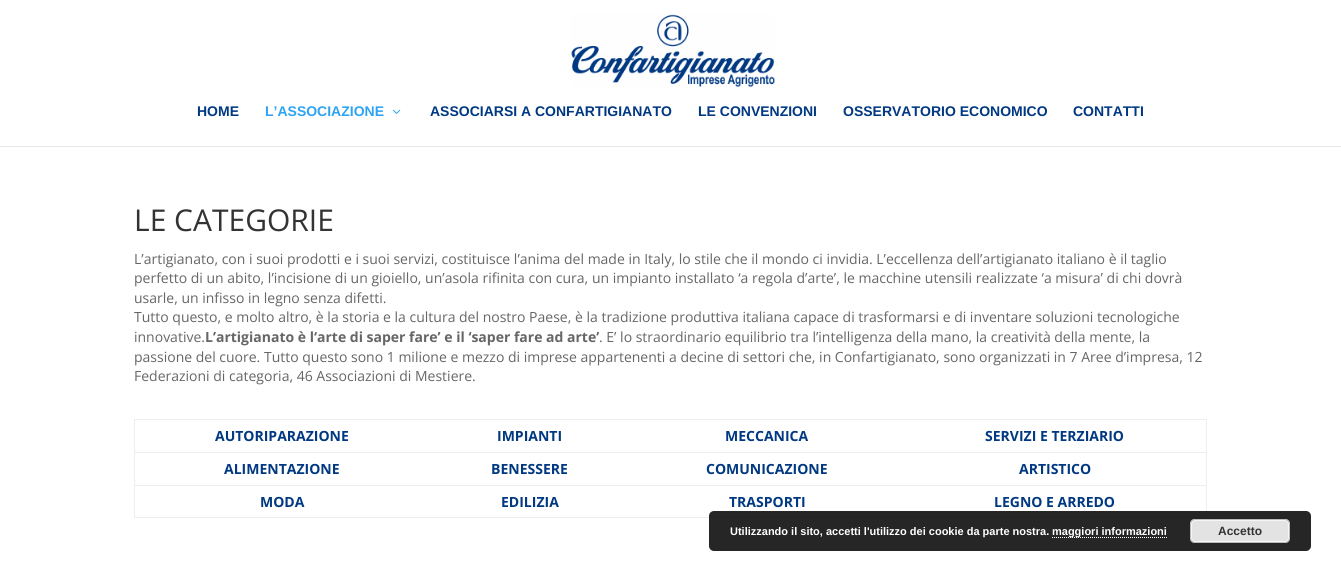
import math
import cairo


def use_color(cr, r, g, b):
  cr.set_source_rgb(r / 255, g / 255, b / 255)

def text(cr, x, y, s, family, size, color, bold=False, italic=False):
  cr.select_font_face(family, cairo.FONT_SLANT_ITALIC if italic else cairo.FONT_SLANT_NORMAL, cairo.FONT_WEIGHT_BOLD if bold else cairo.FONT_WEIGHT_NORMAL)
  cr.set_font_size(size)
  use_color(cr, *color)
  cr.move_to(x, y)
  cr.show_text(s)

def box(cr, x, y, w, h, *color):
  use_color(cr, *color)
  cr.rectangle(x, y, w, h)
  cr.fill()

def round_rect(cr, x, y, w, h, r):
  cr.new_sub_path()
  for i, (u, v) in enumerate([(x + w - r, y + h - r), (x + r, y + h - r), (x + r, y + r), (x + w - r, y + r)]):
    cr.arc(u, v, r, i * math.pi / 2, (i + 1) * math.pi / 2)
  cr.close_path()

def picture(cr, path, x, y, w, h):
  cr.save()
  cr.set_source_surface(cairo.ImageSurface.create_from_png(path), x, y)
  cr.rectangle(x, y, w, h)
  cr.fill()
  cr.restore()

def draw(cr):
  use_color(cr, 255, 255, 255)
  cr.paint()
  box(cr, 0, 146, 1341, 1, 230, 230, 230)
  picture(cr, "img_01.png", 571, 14, 204, 73)
  picture(cr, "img_02.png", 392, 109, 9, 5)
  box(cr, 134, 419, 1073, 1, 238, 238, 238)
  box(cr, 1206, 419, 1, 99, 238, 238, 238)
  box(cr, 134, 517, 1073, 1, 238, 238, 238)
  box(cr, 134, 419, 1, 99, 238, 238, 238)
  box(cr, 134, 452, 1073, 1, 238, 238, 238)
  box(cr, 134, 485, 1073, 1, 238, 238, 238)
  cr.set_source_rgba(0, 0, 0, 0.85)
  round_rect(cr, 709, 511, 602, 40, 5)
  cr.fill()
  cr.new_path()
  cr.move_to(1052, 537.5)
  cr.line_to(1167, 537.5)
  use_color(cr, 255, 255, 255)
  cr.set_line_width(1)
  cr.set_dash([1, 1])
  cr.stroke()
  use_color(cr, 227, 227, 227)
  round_rect(cr, 1190, 519, 100, 24, 5)
  cr.fill()
  round_rect(cr, 1191.5, 520.5, 97, 21, 3.5)
  use_color(cr, 246, 246, 246)
  cr.set_dash([])
  cr.stroke()
  round_rect(cr, 1190.5, 519.5, 99, 23, 4.5)
  use_color(cr, 187, 187, 187)
  cr.stroke()
  text(cr, 197, 116, "HOME", "Liberation Sans", 14, (0, 56, 130), bold=True)
  text(cr, 265, 116, "L’ASSOCIAZIONE", "Liberation Sans", 14, (46, 163, 242), bold=True)
  text(cr, 430, 116, "ASSOCIARSI A CONFARTIGIANATO", "Liberation Sans", 14, (0, 56, 130), bold=True)
  text(cr, 698, 116, "LE CONVENZIONI", "Liberation Sans", 14, (0, 56, 130), bold=True)
  text(cr, 843, 116, "OSSERVATORIO ECONOMICO", "Liberation Sans", 14, (0, 56, 130), bold=True)
  text(cr, 1073, 116, "CONTATTI", "Liberation Sans", 14, (0, 56, 130), bold=True)
  text(cr, 134, 231, "LE CATEGORIE", "Open Sans", 30, (51, 51, 51))
  text(cr, 134, 264, "L’artigianato, con i suoi prodotti e i suoi servizi, costituisce l’anima del made in Italy, lo stile che il mondo ci invidia. L’eccellenza dell’artigianato italiano è il taglio", "Open Sans", 14, (102, 102, 102))
  text(cr, 134, 283, "perfetto di un abito, l’incisione di un gioiello, un’asola rifinita con cura, un impianto installato ‘a regola d’arte’, le macchine utensili realizzate ‘a misura’ di chi dovrà", "Open Sans", 14, (102, 102, 102))
  text(cr, 134, 303, "usarle, un infisso in legno senza difetti.", "Open Sans", 14, (102, 102, 102))
  text(cr, 134, 322, "Tutto questo, e molto altro, è la storia e la cultura del nostro Paese, è la tradizione produttiva italiana capace di trasformarsi e di inventare soluzioni tecnologiche", "Open Sans", 14, (102, 102, 102))
  text(cr, 134, 342, "innovative.", "Open Sans", 14, (102, 102, 102))
  text(cr, 205, 342, "L’artigianato è l‘arte di saper fare’ e il ‘saper fare ad arte’", "Open Sans", 14, (102, 102, 102), bold=True)
  text(cr, 599, 342, ". E’ lo straordinario equilibrio tra l’intelligenza della mano, la creatività della mente, la", "Open Sans", 14, (102, 102, 102))
  text(cr, 134, 362, "passione del cuore. Tutto questo sono 1 milione e mezzo di imprese appartenenti a decine di settori che, in Confartigianato, sono organizzati in 7 Aree d’impresa, 12", "Open Sans", 14, (102, 102, 102))
  text(cr, 134, 381, "Federazioni di categoria, 46 Associazioni di Mestiere.", "Open Sans", 14, (102, 102, 102))
  text(cr, 215, 441, "AUTORIPARAZIONE", "Open Sans", 14, (0, 56, 130), bold=True)
  text(cr, 497, 441, "IMPIANTI", "Open Sans", 14, (0, 56, 130), bold=True)
  text(cr, 725, 441, "MECCANICA", "Open Sans", 14, (0, 56, 130), bold=True)
  text(cr, 985, 441, "SERVIZI E TERZIARIO", "Open Sans", 14, (0, 56, 130), bold=True)
  text(cr, 224, 474, "ALIMENTAZIONE", "Open Sans", 14, (0, 56, 130), bold=True)
  text(cr, 491, 474, "BENESSERE", "Open Sans", 14, (0, 56, 130), bold=True)
  text(cr, 706, 474, "COMUNICAZIONE", "Open Sans", 14, (0, 56, 130), bold=True)
  text(cr, 1019, 474, "ARTISTICO", "Open Sans", 14, (0, 56, 130), bold=True)
  text(cr, 260, 507, "MODA", "Open Sans", 14, (0, 56, 130), bold=True)
  text(cr, 501, 507, "EDILIZIA", "Open Sans", 14, (0, 56, 130), bold=True)
  text(cr, 729, 507, "TRASPORTI", "Open Sans", 14, (0, 56, 130), bold=True)
  text(cr, 994, 507, "LEGNO E ARREDO", "Open Sans", 14, (0, 56, 130), bold=True)
  text(cr, 730, 535, "Utilizzando il sito, accetti l'utilizzo dei cookie da parte nostra.", "Liberation Sans", 11, (255, 255, 255), bold=True)
  text(cr, 1052, 535, "maggiori informazioni", "Liberation Sans", 11, (255, 255, 255), bold=True)
  text(cr, 1218, 535, "Accetto", "Liberation Sans", 12, (51, 51, 51), bold=True)


surface = cairo.ImageSurface(cairo.FORMAT_RGB24, 1341, 581)
cr = cairo.Context(surface)
options = cairo.FontOptions()
options.set_hint_metrics(cairo.HINT_METRICS_OFF)
options.set_hint_style(cairo.HINT_STYLE_NONE)
cr.set_font_options(options)
cr.set_miter_limit(4)
draw(cr)
surface.write_to_png("out.png")
